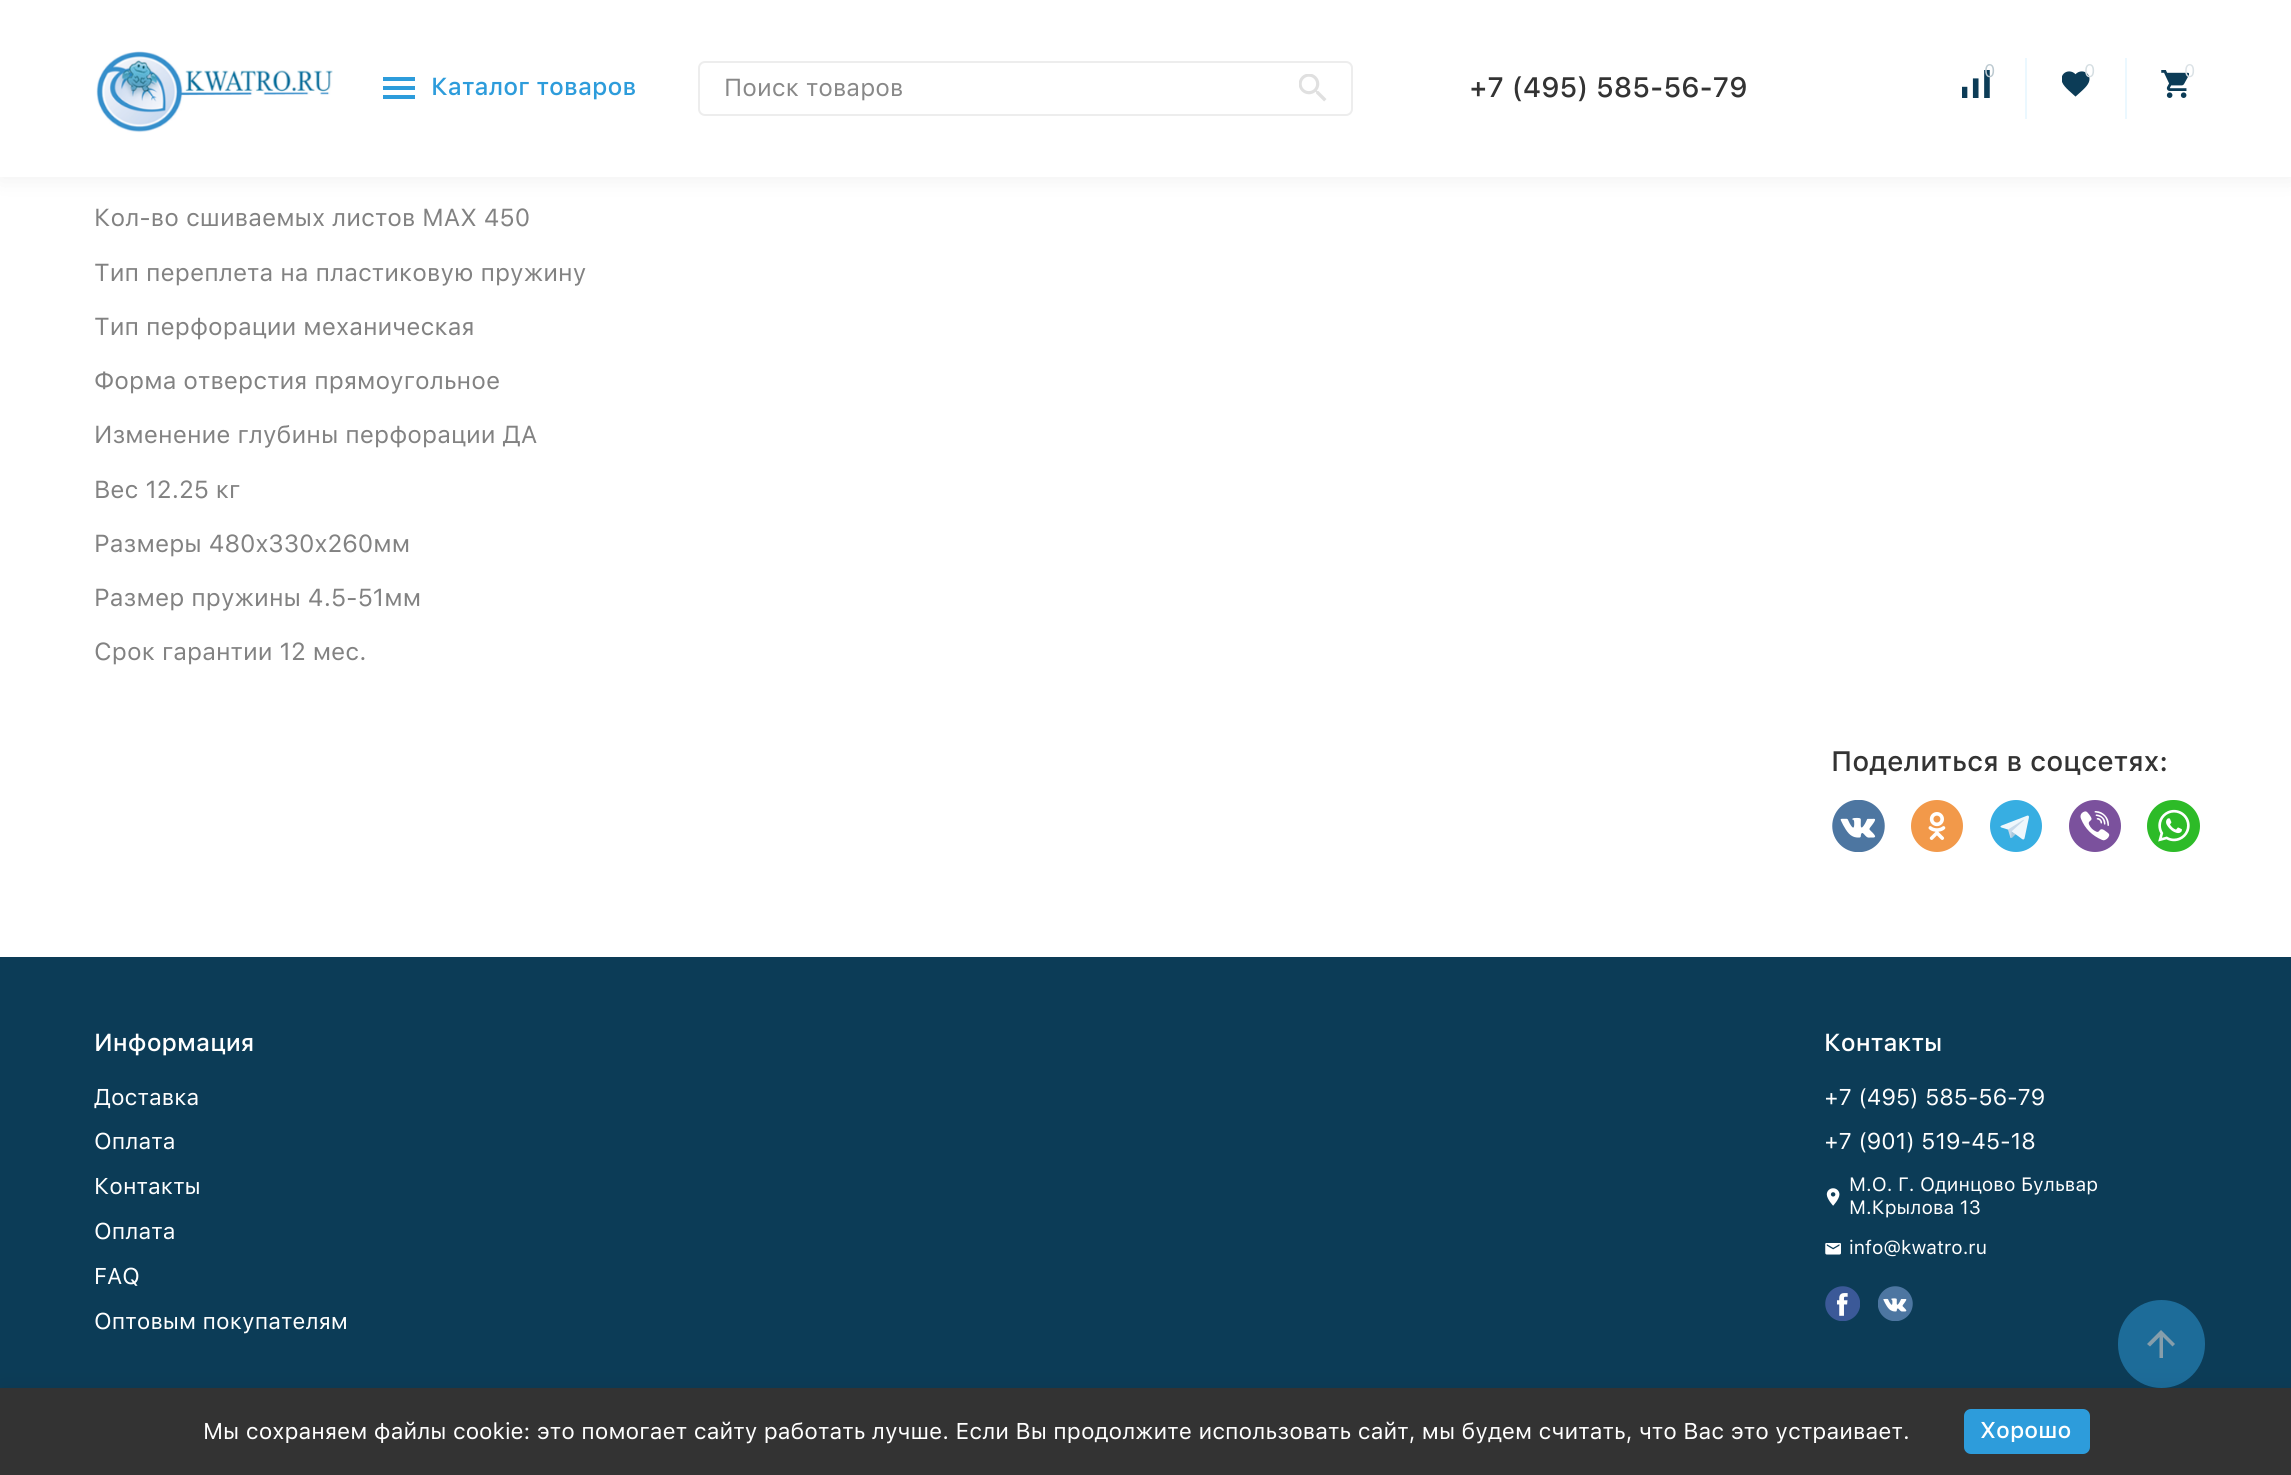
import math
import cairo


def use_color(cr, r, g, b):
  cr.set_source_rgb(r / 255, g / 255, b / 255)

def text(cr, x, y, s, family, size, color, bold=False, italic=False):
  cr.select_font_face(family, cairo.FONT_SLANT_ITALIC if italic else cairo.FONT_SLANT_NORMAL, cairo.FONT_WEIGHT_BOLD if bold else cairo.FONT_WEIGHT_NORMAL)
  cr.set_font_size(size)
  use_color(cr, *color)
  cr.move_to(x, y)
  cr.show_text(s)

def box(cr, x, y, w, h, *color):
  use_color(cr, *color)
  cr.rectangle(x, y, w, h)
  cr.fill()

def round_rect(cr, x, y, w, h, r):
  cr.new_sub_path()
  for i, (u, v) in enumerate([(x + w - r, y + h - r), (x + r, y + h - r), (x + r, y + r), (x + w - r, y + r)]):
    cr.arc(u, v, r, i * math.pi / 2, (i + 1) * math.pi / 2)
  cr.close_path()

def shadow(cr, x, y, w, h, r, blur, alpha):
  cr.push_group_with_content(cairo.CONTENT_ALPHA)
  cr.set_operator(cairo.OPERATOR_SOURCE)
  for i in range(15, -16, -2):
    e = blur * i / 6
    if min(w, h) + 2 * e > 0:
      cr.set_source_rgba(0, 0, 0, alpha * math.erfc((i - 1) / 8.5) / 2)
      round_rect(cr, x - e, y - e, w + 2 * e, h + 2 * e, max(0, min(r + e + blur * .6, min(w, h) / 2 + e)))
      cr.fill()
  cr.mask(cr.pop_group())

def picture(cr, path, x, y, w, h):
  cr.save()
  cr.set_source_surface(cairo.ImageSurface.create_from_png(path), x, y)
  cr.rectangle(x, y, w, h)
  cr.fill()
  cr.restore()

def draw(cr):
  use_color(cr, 255, 255, 255)
  cr.paint()
  use_color(cr, 0, 0, 0)
  shadow(cr, 0, 0, 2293, 177, 0, 13, 0.07)
  box(cr, 0, 0, 2291, 177, 255, 255, 255)
  picture(cr, "img_01.png", 96, 51, 237, 82)
  picture(cr, "img_02.png", 1962, 70, 28, 28)
  box(cr, 2025, 58, 2, 61, 235, 248, 255)
  picture(cr, "img_03.png", 2062, 71, 28, 26)
  box(cr, 2125, 58, 2, 61, 235, 248, 255)
  picture(cr, "img_04.png", 2161, 70, 28, 28)
  box(cr, 383, 77, 32, 4, 45, 156, 219)
  box(cr, 383, 86, 32, 4, 45, 156, 219)
  box(cr, 383, 95, 32, 4, 45, 156, 219)
  round_rect(cr, 699, 62, 653, 53, 6)
  use_color(cr, 237, 237, 237)
  cr.stroke()
  picture(cr, "img_05.png", 1299, 74, 28, 28)
  picture(cr, "img_06.png", 1832, 800, 53, 52)
  picture(cr, "img_07.png", 1911, 800, 52, 52)
  picture(cr, "img_08.png", 1990, 800, 52, 52)
  picture(cr, "img_09.png", 2069, 800, 52, 52)
  picture(cr, "img_10.png", 2147, 800, 53, 52)
  box(cr, 0, 957, 2291, 431, 12, 60, 87)
  picture(cr, "img_11.png", 1826, 1188, 14, 18)
  picture(cr, "img_12.png", 1825, 1243, 16, 12)
  picture(cr, "img_13.png", 1825, 1286, 35, 35)
  picture(cr, "img_14.png", 1878, 1286, 35, 35)
  use_color(cr, 29, 108, 153)
  round_rect(cr, 2118, 1300, 87, 88, 43.5)
  cr.fill()
  use_color(cr, 134, 158, 171)
  cr.new_path()
  cr.move_to(2163, 1358)
  cr.line_to(2159.5, 1358)
  cr.line_to(2159.5, 1337)
  cr.line_to(2150, 1346.5)
  cr.line_to(2147, 1344)
  cr.line_to(2161, 1330)
  cr.line_to(2175, 1344)
  cr.line_to(2172.5, 1346.5)
  cr.line_to(2163, 1337)
  cr.close_path()
  cr.fill()
  use_color(cr, 0, 0, 0)
  shadow(cr, 0, 1388, 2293, 87, 0, 13, 0.07)
  box(cr, 0, 1388, 2291, 87, 51, 51, 51)
  use_color(cr, 45, 156, 219)
  round_rect(cr, 1964, 1409, 126, 45, 7)
  cr.fill()
  text(cr, 1984, 77, "0", "SF Pro Text", 18, (188, 201, 208))
  text(cr, 2084, 77, "0", "SF Pro Text", 18, (213, 222, 226))
  text(cr, 2184, 77, "0", "SF Pro Text", 18, (219, 226, 230))
  text(cr, 431, 95, "Каталог товаров", "SF Pro Text Medium", 24.5, (45, 156, 219))
  text(cr, 724, 96, "Поиск товаров", "SF Pro Text", 24.5, (136, 136, 136))
  text(cr, 1469, 97, "+7 (495) 585-56-79", "SF Pro Text Medium", 28, (51, 51, 51))
  text(cr, 94, 226, "Кол-во сшиваемых листов MAX 450", "SF Pro Text", 24.5, (130, 130, 130))
  text(cr, 94, 281, "Тип переплета на пластиковую пружину", "SF Pro Text", 24.5, (130, 130, 130))
  text(cr, 94, 335, "Тип перфорации механическая", "SF Pro Text", 24.5, (130, 130, 130))
  text(cr, 94, 389, "Форма отверстия прямоугольное", "SF Pro Text", 24.5, (130, 130, 130))
  text(cr, 94, 443, "Изменение глубины перфорации ДА", "SF Pro Text", 24.5, (130, 130, 130))
  text(cr, 94, 498, "Вес 12.25 кг", "SF Pro Text", 24.5, (130, 130, 130))
  text(cr, 94, 552, "Размеры 480x330x260мм", "SF Pro Text", 24.5, (130, 130, 130))
  text(cr, 94, 606, "Размер пружины 4.5-51мм", "SF Pro Text", 24.5, (130, 130, 130))
  text(cr, 94, 660, "Срок гарантии 12 мес.", "SF Pro Text", 24.5, (130, 130, 130))
  text(cr, 1831, 771, "Поделиться в соцсетях:", "SF Pro Text Medium", 28, (51, 51, 51))
  text(cr, 94, 1051, "Информация", "SF Pro Text Medium", 24.5, (255, 255, 255))
  text(cr, 94, 1105, "Доставка", "SF Pro Text", 22.75, (255, 255, 255))
  text(cr, 94, 1149, "Оплата", "SF Pro Text", 22.75, (255, 255, 255))
  text(cr, 94, 1194, "Контакты", "SF Pro Text", 22.75, (255, 255, 255))
  text(cr, 94, 1239, "Оплата", "SF Pro Text", 22.75, (255, 255, 255))
  text(cr, 94, 1284, "FAQ", "SF Pro Text", 22.75, (255, 255, 255))
  text(cr, 94, 1329, "Оптовым покупателям", "SF Pro Text", 22.75, (255, 255, 255))
  text(cr, 1824, 1051, "Контакты", "SF Pro Text Medium", 24.5, (255, 255, 255))
  text(cr, 1824, 1105, "+7 (495) 585-56-79", "SF Pro Text", 22.75, (255, 255, 255))
  text(cr, 1824, 1149, "+7 (901) 519-45-18", "SF Pro Text", 22.75, (255, 255, 255))
  text(cr, 1849, 1191, "М.О. Г. Одинцово Бульвар", "SF Pro Text", 19.25, (255, 255, 255))
  text(cr, 1849, 1214, "М.Крылова 13", "SF Pro Text", 19.25, (255, 255, 255))
  text(cr, 1849, 1254, "info@kwatro.ru", "SF Pro Text", 19.25, (255, 255, 255))
  text(cr, 203, 1439, "Мы сохраняем файлы cookie: это помогает сайту работать лучше. Если Вы продолжите использовать сайт, мы будем считать, что Вас это устраивает.", "SF Pro Text", 22.75, (255, 255, 255))
  text(cr, 1980, 1438, "Хорошо", "SF Pro Text Medium", 22.75, (255, 255, 255))


surface = cairo.ImageSurface(cairo.FORMAT_RGB24, 2291, 1475)
cr = cairo.Context(surface)
options = cairo.FontOptions()
options.set_hint_metrics(cairo.HINT_METRICS_OFF)
options.set_hint_style(cairo.HINT_STYLE_NONE)
cr.set_font_options(options)
cr.set_miter_limit(4)
draw(cr)
surface.write_to_png("out.png")
